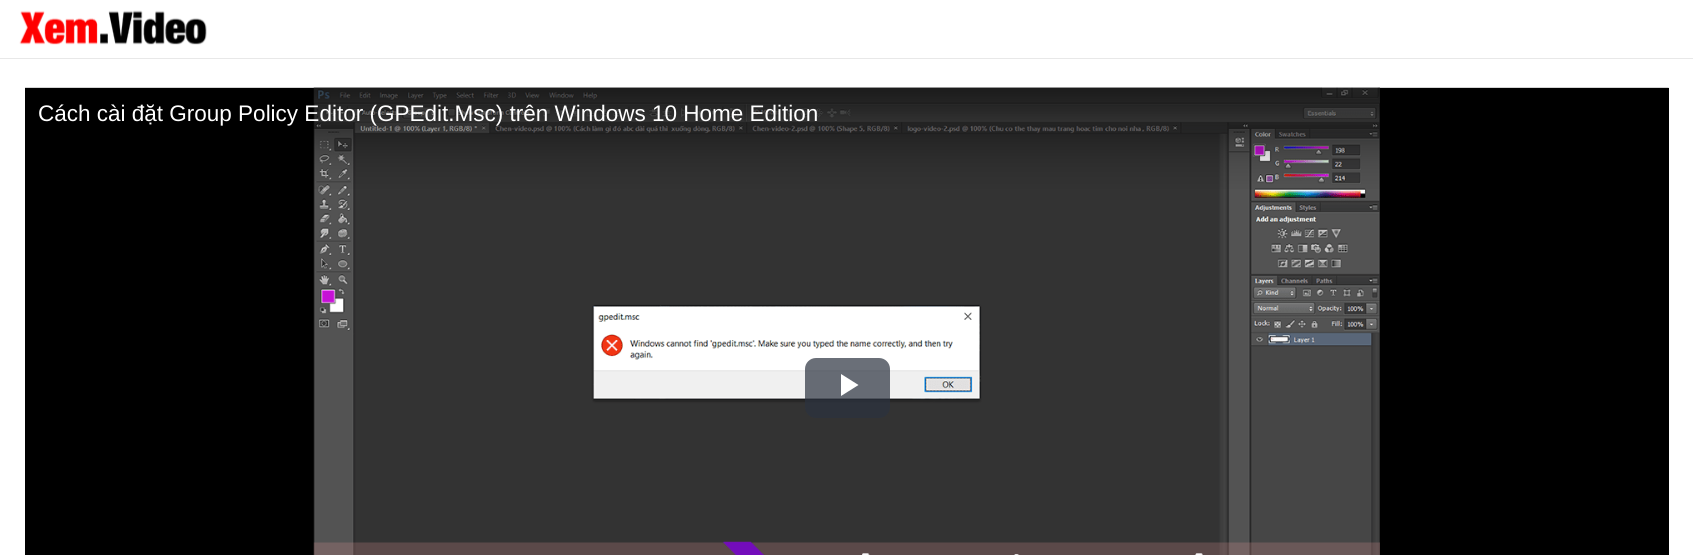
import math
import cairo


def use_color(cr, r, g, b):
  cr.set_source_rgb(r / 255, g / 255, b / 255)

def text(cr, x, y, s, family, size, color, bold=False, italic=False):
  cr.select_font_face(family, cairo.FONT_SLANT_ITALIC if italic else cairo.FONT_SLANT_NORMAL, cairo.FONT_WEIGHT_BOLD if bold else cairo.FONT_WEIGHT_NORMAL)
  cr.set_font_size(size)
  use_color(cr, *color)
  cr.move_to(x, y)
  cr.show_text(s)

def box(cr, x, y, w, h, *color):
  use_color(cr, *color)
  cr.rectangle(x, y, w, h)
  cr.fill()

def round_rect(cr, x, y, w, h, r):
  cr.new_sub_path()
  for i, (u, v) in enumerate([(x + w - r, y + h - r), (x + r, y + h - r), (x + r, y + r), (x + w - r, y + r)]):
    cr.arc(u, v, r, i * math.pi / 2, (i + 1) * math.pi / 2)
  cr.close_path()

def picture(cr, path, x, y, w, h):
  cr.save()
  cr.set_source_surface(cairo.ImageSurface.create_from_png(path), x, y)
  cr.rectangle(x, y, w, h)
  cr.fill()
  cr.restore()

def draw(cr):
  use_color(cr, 255, 255, 255)
  cr.paint()
  box(cr, 0, 58, 1693, 1, 232, 232, 232)
  picture(cr, "img_01.png", 19, 10, 188, 35)
  box(cr, 25, 88, 1644, 467, 0, 0, 0)
  picture(cr, "img_03.png", 313, 87, 1067, 1)
  picture(cr, "img_02.png", 313, 87, 1067, 468)
  picture(cr, "img_04.png", 25, 87, 1644, 102)
  cr.set_source_rgba(0.169, 0.2, 0.247, 0.7)
  round_rect(cr, 805, 358, 85, 60, 11)
  cr.fill()
  use_color(cr, 255, 255, 255)
  cr.new_path()
  cr.move_to(841, 374)
  cr.line_to(841, 396)
  cr.line_to(858.5, 385)
  cr.close_path()
  cr.fill()
  text(cr, 38, 121, "Cách cài đặt Group Policy Editor (GPEdit.Msc) trên Windows 10 Home Edition", "Liberation Sans", 22.5, (255, 255, 255))


surface = cairo.ImageSurface(cairo.FORMAT_RGB24, 1693, 555)
cr = cairo.Context(surface)
options = cairo.FontOptions()
options.set_hint_metrics(cairo.HINT_METRICS_OFF)
options.set_hint_style(cairo.HINT_STYLE_NONE)
cr.set_font_options(options)
cr.set_miter_limit(4)
draw(cr)
surface.write_to_png("out.png")
